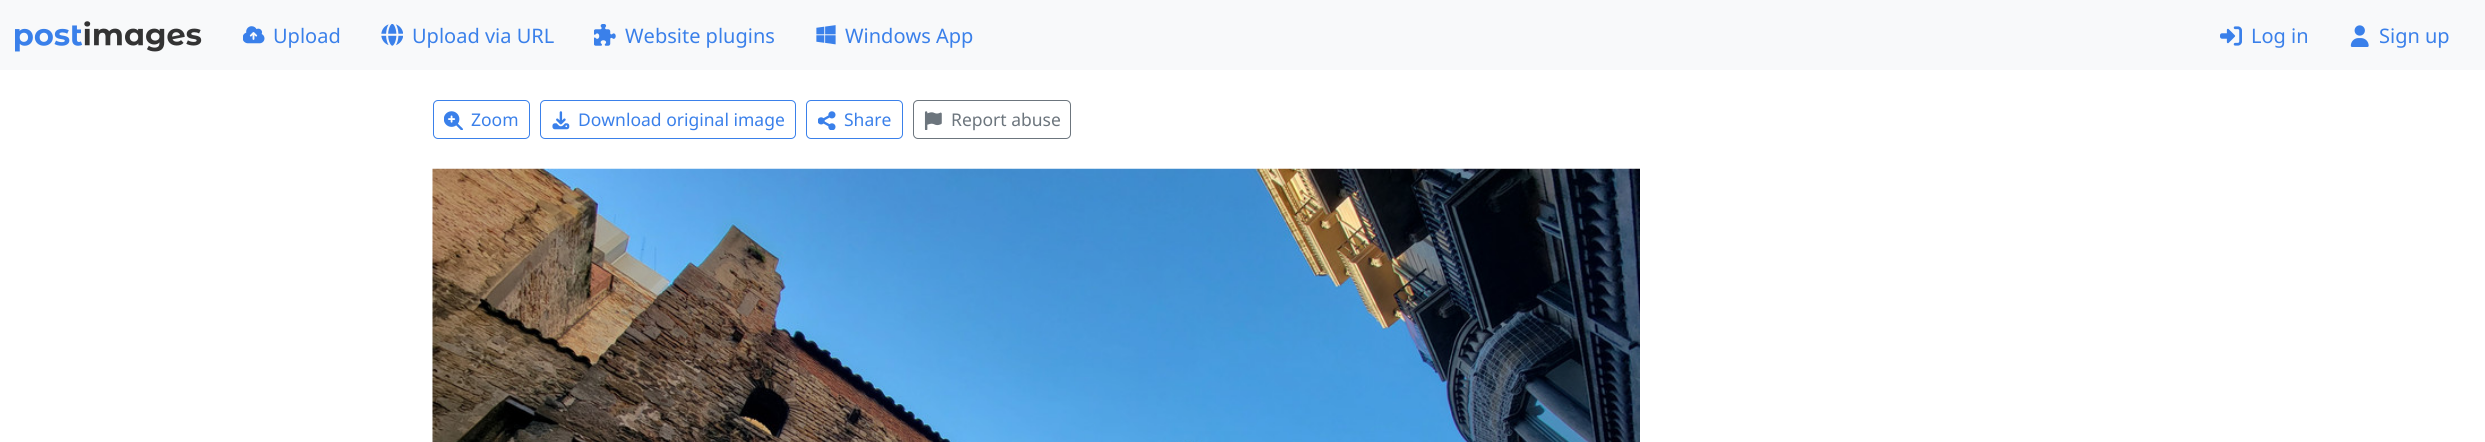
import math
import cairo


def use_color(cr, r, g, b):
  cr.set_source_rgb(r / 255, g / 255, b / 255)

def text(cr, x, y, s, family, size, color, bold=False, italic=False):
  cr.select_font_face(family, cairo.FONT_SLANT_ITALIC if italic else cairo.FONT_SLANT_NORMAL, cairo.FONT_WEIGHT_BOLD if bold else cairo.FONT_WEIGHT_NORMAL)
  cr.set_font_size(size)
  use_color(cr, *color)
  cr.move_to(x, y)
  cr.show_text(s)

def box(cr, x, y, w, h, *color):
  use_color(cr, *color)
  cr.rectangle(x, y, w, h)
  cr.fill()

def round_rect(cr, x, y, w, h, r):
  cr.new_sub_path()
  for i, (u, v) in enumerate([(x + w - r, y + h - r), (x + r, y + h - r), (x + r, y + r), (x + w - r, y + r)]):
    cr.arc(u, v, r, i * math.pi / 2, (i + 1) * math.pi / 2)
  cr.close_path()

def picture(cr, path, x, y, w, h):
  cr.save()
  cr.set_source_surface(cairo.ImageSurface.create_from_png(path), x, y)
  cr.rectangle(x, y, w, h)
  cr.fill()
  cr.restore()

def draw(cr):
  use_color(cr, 255, 255, 255)
  cr.paint()
  box(cr, 0, 0, 2485, 70, 248, 249, 250)
  picture(cr, "img_01.png", 15, 21, 187, 31)
  picture(cr, "img_02.png", 243, 26, 22, 18)
  picture(cr, "img_03.png", 381, 24, 22, 22)
  picture(cr, "img_04.png", 594, 24, 22, 22)
  picture(cr, "img_05.png", 816, 25, 20, 20)
  picture(cr, "img_06.png", 2220, 26, 22, 20)
  picture(cr, "img_07.png", 2350, 25, 19, 22)
  round_rect(cr, 433.5, 100.5, 96, 38, 4.5)
  use_color(cr, 58, 128, 234)
  cr.set_line_width(1)
  cr.stroke()
  picture(cr, "img_08.png", 444, 111, 19, 19)
  round_rect(cr, 540.5, 100.5, 255, 38, 4.5)
  cr.stroke()
  picture(cr, "img_09.png", 552, 111, 18, 19)
  round_rect(cr, 806.5, 100.5, 96, 38, 4.5)
  cr.stroke()
  picture(cr, "img_10.png", 818, 111, 18, 19)
  round_rect(cr, 913.5, 100.5, 157, 38, 4.5)
  use_color(cr, 108, 117, 125)
  cr.stroke()
  picture(cr, "img_11.png", 924, 111, 18, 19)
  picture(cr, "img_12.png", 432, 168, 1208, 274)
  text(cr, 273, 43, "Upload", "Noto Sans", 20, (58, 128, 234))
  text(cr, 412, 43, "Upload via URL", "Noto Sans", 20, (58, 128, 234))
  text(cr, 625, 43, "Website plugins", "Noto Sans", 20, (58, 128, 234))
  text(cr, 845, 43, "Windows App", "Noto Sans", 20, (58, 128, 234))
  text(cr, 2251, 43, "Log in", "Noto Sans", 20, (58, 128, 234))
  text(cr, 2379, 43, "Sign up", "Noto Sans", 20, (58, 128, 234))
  text(cr, 471, 126, "Zoom", "Noto Sans", 17.5, (58, 128, 234))
  text(cr, 578, 126, "Download original image", "Noto Sans", 17.5, (58, 128, 234))
  text(cr, 844, 126, "Share", "Noto Sans", 17.5, (58, 128, 234))
  text(cr, 951, 126, "Report abuse", "Noto Sans", 17.5, (108, 117, 125))


surface = cairo.ImageSurface(cairo.FORMAT_RGB24, 2485, 442)
cr = cairo.Context(surface)
options = cairo.FontOptions()
options.set_hint_metrics(cairo.HINT_METRICS_OFF)
options.set_hint_style(cairo.HINT_STYLE_NONE)
cr.set_font_options(options)
cr.set_miter_limit(4)
draw(cr)
surface.write_to_png("out.png")
